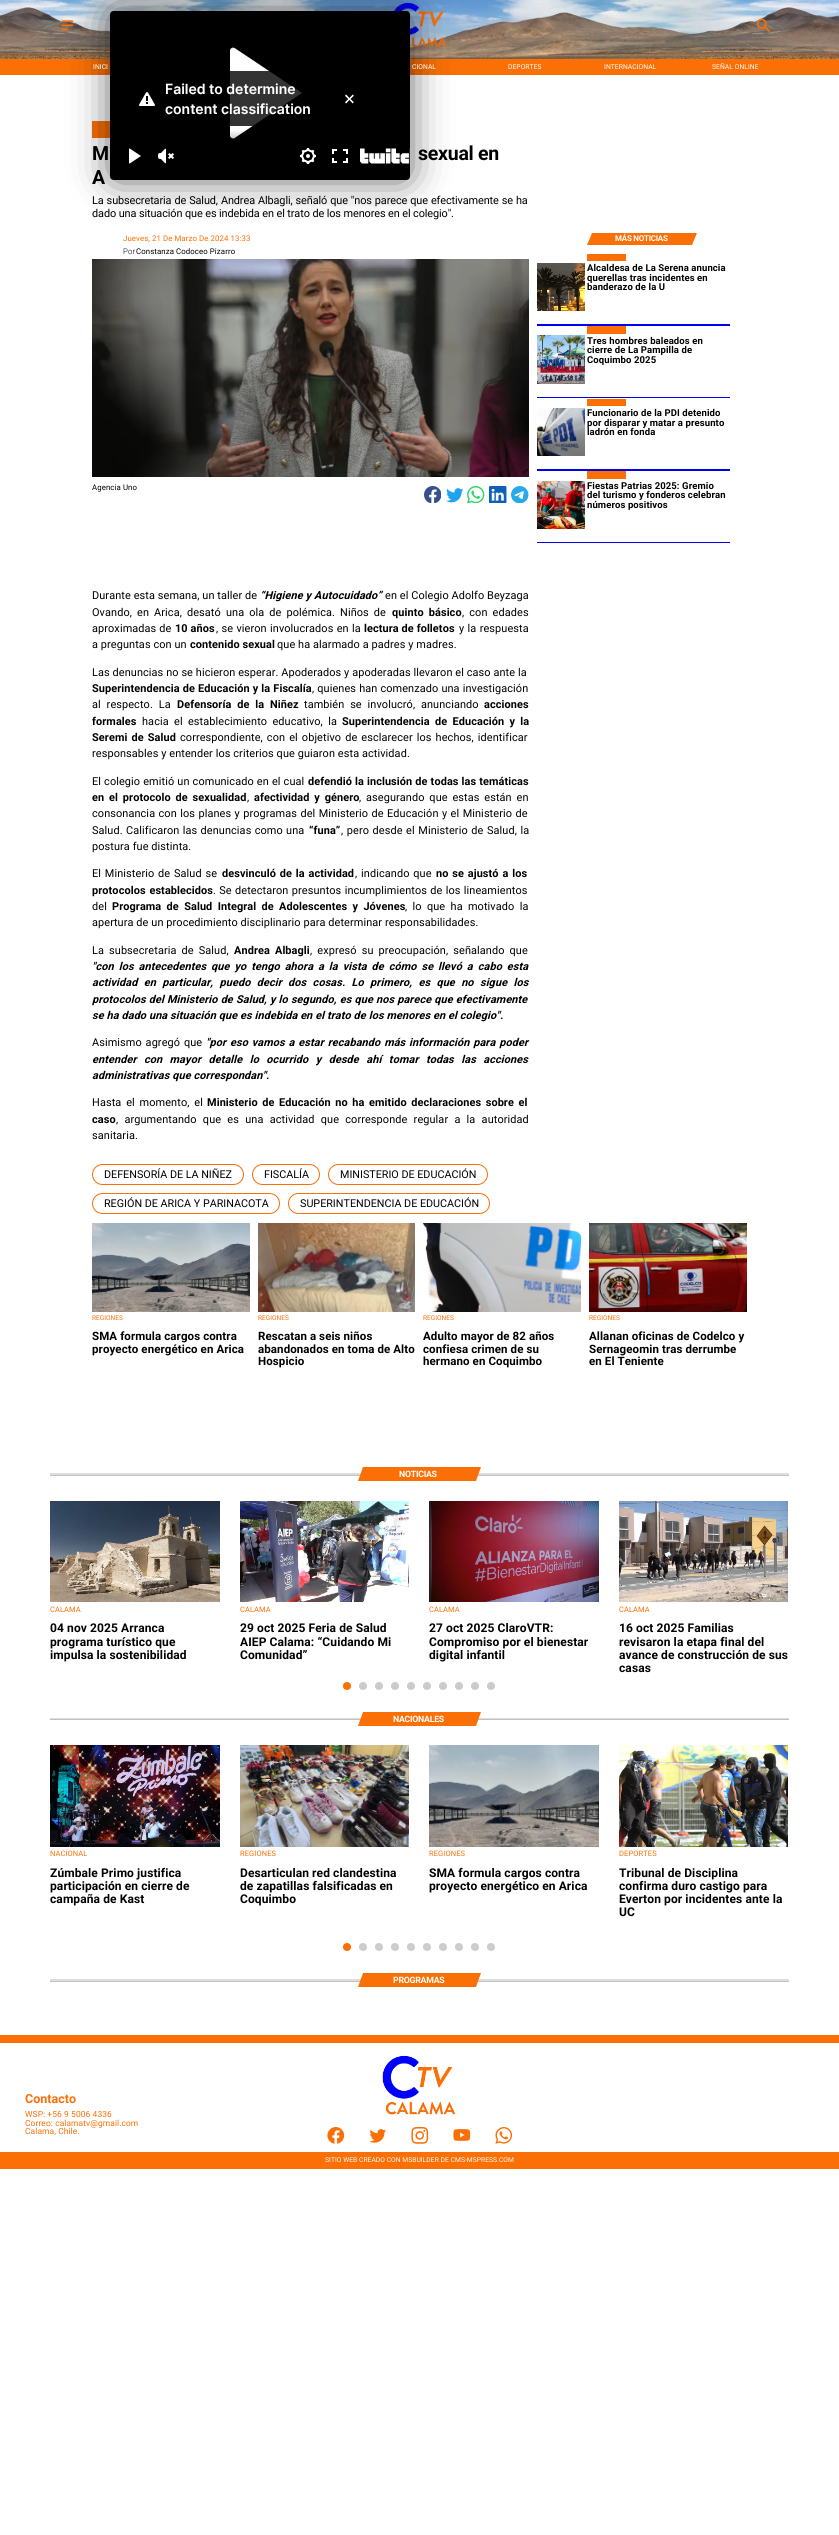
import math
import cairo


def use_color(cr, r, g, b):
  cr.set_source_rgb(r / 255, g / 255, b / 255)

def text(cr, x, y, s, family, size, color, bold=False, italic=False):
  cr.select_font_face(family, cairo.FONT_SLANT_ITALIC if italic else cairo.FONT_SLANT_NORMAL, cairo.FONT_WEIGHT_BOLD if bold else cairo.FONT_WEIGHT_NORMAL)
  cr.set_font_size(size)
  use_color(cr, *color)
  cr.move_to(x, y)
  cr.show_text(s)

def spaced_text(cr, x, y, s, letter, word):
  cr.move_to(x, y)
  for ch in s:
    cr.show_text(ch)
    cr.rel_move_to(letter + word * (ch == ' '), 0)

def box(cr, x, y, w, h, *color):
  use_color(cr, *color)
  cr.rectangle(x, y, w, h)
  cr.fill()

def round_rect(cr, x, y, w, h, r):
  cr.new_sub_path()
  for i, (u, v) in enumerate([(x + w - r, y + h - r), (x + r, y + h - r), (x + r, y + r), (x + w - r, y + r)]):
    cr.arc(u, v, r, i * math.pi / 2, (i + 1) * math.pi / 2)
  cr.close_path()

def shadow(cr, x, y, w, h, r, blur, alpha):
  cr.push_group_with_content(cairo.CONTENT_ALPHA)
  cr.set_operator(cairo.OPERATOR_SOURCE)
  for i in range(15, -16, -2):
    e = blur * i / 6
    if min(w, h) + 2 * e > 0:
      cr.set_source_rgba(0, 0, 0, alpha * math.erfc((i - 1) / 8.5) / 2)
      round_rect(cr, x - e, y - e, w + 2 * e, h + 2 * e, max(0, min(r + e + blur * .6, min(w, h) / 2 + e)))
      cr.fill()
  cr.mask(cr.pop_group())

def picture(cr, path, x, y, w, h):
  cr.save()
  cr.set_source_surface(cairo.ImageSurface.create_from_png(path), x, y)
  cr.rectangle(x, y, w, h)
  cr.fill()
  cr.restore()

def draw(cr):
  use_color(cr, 255, 255, 255)
  cr.paint()
  picture(cr, "img_02.png", 0, 0, 839, 59)
  picture(cr, "img_03.png", 61, 20, 13, 11)
  picture(cr, "img_04.png", 394, 2, 53, 45)
  box(cr, 0, 59, 839, 16, 250, 111, 6)
  box(cr, 92, 121, 18, 17, 250, 111, 6)
  use_color(cr, 0, 0, 0)
  shadow(cr, 115, 16, 290, 159, 0, 20.5, 0.75)
  picture(cr, "img_01.png", 110, 11, 300, 169)
  picture(cr, "img_05.png", 756, 18, 14, 14)
  picture(cr, "img_06.png", 92, 259, 437, 218)
  picture(cr, "img_07.png", 424, 486, 17, 17)
  picture(cr, "img_08.png", 446, 488, 17, 15)
  picture(cr, "img_09.png", 467, 486, 18, 17)
  picture(cr, "img_10.png", 489, 486, 18, 17)
  picture(cr, "img_11.png", 511, 486, 18, 17)
  use_color(cr, 250, 111, 6)
  cr.new_path()
  cr.move_to(592, 233)
  cr.line_to(697, 233)
  cr.line_to(692, 245)
  cr.line_to(587, 245)
  cr.close_path()
  cr.fill()
  box(cr, 587, 254, 39, 7, 250, 111, 6)
  picture(cr, "img_12.png", 537, 263, 48, 48)
  box(cr, 537, 324, 193, 1, 0, 0, 255)
  box(cr, 537, 325, 193, 1, 0, 0, 224)
  box(cr, 587, 326, 39, 8, 250, 111, 6)
  picture(cr, "img_13.png", 537, 335, 48, 49)
  box(cr, 537, 397, 193, 1, 0, 0, 224)
  box(cr, 587, 399, 39, 7, 250, 111, 6)
  picture(cr, "img_14.png", 537, 408, 48, 48)
  box(cr, 537, 469, 193, 1, 0, 0, 255)
  box(cr, 537, 470, 193, 1, 0, 0, 224)
  box(cr, 587, 471, 39, 8, 250, 111, 6)
  picture(cr, "img_15.png", 537, 481, 48, 48)
  box(cr, 537, 542, 193, 1, 0, 0, 224)
  round_rect(cr, 92.5, 1164.5, 151, 20, 10)
  use_color(cr, 250, 111, 6)
  cr.set_line_width(1)
  cr.stroke()
  round_rect(cr, 252.5, 1164.5, 67, 20, 10)
  cr.stroke()
  round_rect(cr, 328.5, 1164.5, 159, 20, 10)
  cr.stroke()
  round_rect(cr, 92.5, 1193.5, 187, 20, 10)
  cr.stroke()
  round_rect(cr, 288.5, 1193.5, 201, 20, 10)
  cr.stroke()
  picture(cr, "img_16.png", 92, 1223, 158, 89)
  picture(cr, "img_17.png", 258, 1223, 157, 89)
  picture(cr, "img_18.png", 423, 1223, 158, 89)
  picture(cr, "img_19.png", 589, 1223, 158, 89)
  box(cr, 50, 1473, 739, 2, 221, 221, 221)
  box(cr, 50, 1475, 739, 1, 194, 194, 194)
  use_color(cr, 250, 111, 6)
  cr.new_path()
  cr.move_to(363, 1467)
  cr.line_to(481, 1467)
  cr.line_to(476, 1481)
  cr.line_to(358, 1481)
  cr.close_path()
  cr.fill()
  picture(cr, "img_20.png", 50, 1501, 170, 101)
  picture(cr, "img_21.png", 240, 1501, 169, 101)
  picture(cr, "img_22.png", 429, 1501, 170, 101)
  picture(cr, "img_23.png", 619, 1501, 169, 101)
  cr.arc(347, 1686, 4, 0, 2 * math.pi)
  cr.fill()
  use_color(cr, 204, 204, 204)
  cr.arc(363, 1686, 4, 0, 2 * math.pi)
  cr.fill()
  cr.arc(379, 1686, 4, 0, 2 * math.pi)
  cr.fill()
  cr.arc(395, 1686, 4, 0, 2 * math.pi)
  cr.fill()
  cr.arc(411, 1686, 4, 0, 2 * math.pi)
  cr.fill()
  cr.arc(427, 1686, 4, 0, 2 * math.pi)
  cr.fill()
  cr.arc(443, 1686, 4, 0, 2 * math.pi)
  cr.fill()
  cr.arc(459, 1686, 4, 0, 2 * math.pi)
  cr.fill()
  cr.arc(475, 1686, 4, 0, 2 * math.pi)
  cr.fill()
  cr.arc(491, 1686, 4, 0, 2 * math.pi)
  cr.fill()
  box(cr, 50, 1718, 739, 1, 221, 221, 221)
  box(cr, 50, 1719, 739, 1, 194, 194, 194)
  use_color(cr, 250, 111, 6)
  cr.new_path()
  cr.move_to(363, 1712)
  cr.line_to(481, 1712)
  cr.line_to(476, 1726)
  cr.line_to(358, 1726)
  cr.close_path()
  cr.fill()
  picture(cr, "img_24.png", 50, 1745, 170, 102)
  picture(cr, "img_25.png", 240, 1745, 169, 102)
  picture(cr, "img_26.png", 429, 1745, 170, 102)
  picture(cr, "img_27.png", 619, 1745, 169, 102)
  cr.arc(347, 1947, 4, 0, 2 * math.pi)
  cr.fill()
  use_color(cr, 204, 204, 204)
  cr.arc(363, 1947, 4, 0, 2 * math.pi)
  cr.fill()
  cr.arc(379, 1947, 4, 0, 2 * math.pi)
  cr.fill()
  cr.arc(395, 1947, 4, 0, 2 * math.pi)
  cr.fill()
  cr.arc(411, 1947, 4, 0, 2 * math.pi)
  cr.fill()
  cr.arc(427, 1947, 4, 0, 2 * math.pi)
  cr.fill()
  cr.arc(443, 1947, 4, 0, 2 * math.pi)
  cr.fill()
  cr.arc(459, 1947, 4, 0, 2 * math.pi)
  cr.fill()
  cr.arc(475, 1947, 4, 0, 2 * math.pi)
  cr.fill()
  cr.arc(491, 1947, 4, 0, 2 * math.pi)
  cr.fill()
  box(cr, 50, 1979, 739, 2, 221, 221, 221)
  box(cr, 50, 1981, 739, 1, 194, 194, 194)
  use_color(cr, 250, 111, 6)
  cr.new_path()
  cr.move_to(363, 1973)
  cr.line_to(481, 1973)
  cr.line_to(476, 1987)
  cr.line_to(358, 1987)
  cr.close_path()
  cr.fill()
  box(cr, 0, 2035, 839, 8, 250, 111, 6)
  picture(cr, "img_28.png", 382, 2055, 74, 60)
  picture(cr, "img_29.png", 327, 2127, 18, 17)
  picture(cr, "img_30.png", 369, 2129, 17, 14)
  picture(cr, "img_31.png", 411, 2127, 18, 17)
  picture(cr, "img_32.png", 453, 2129, 18, 12)
  picture(cr, "img_33.png", 495, 2127, 18, 17)
  box(cr, 0, 2152, 839, 17, 250, 111, 6)
  cr.select_font_face("Roboto")
  cr.set_font_size(6.75)
  use_color(cr, 255, 255, 255)
  spaced_text(cr, 93, 69, "INICI", 0.05, 0)
  spaced_text(cr, 412, 69, "CIONAL", 0.05, 0)
  spaced_text(cr, 508, 69, "DEPORTES", 0.05, 0)
  spaced_text(cr, 604, 69, "INTERNACIONAL", 0.05, 0)
  spaced_text(cr, 712, 69, "SEÑAL ONLINE", 0.05, 0)
  cr.select_font_face("Roboto", cairo.FONT_SLANT_NORMAL, cairo.FONT_WEIGHT_BOLD)
  cr.set_font_size(19.5)
  use_color(cr, 0, 0, 0)
  spaced_text(cr, 92, 160, "M", -0.25, 0)
  spaced_text(cr, 418, 160, "sexual en", -0.25, 0)
  spaced_text(cr, 92, 184, "A", -0.25, 0)
  cr.select_font_face("Roboto")
  cr.set_font_size(10.9)
  spaced_text(cr, 92, 204, "La subsecretaria de Salud, Andrea Albagli, señaló que \"nos parece que efectivamente se ha", -0.1, 0.4)
  spaced_text(cr, 92, 217, "dado una situación que es indebida en el trato de los menores en el colegio\".", -0.1, 0)
  cr.set_font_size(7.8)
  use_color(cr, 250, 111, 6)
  spaced_text(cr, 123, 241, "Jueves, 21 De Marzo De 2024 13:33", 0.1, 0)
  cr.select_font_face("Roboto Light")
  use_color(cr, 0, 0, 0)
  spaced_text(cr, 123, 254, "Por", 0.1, 0)
  cr.select_font_face("Roboto")
  spaced_text(cr, 136, 254, "Constanza Codoceo Pizarro", 0.1, 0)
  spaced_text(cr, 92, 490, "Agencia Uno", 0.1, 0)
  cr.select_font_face("Roboto", cairo.FONT_SLANT_NORMAL, cairo.FONT_WEIGHT_BOLD)
  cr.set_font_size(8)
  use_color(cr, 255, 255, 255)
  spaced_text(cr, 615, 241, "MÁS NOTICIAS", -0.25, 0)
  cr.set_font_size(9.5)
  use_color(cr, 0, 0, 0)
  spaced_text(cr, 587, 271, "Alcaldesa de La Serena anuncia", 0.1, 0)
  spaced_text(cr, 587, 281, "querellas tras incidentes en", 0.1, 0)
  spaced_text(cr, 587, 290, "banderazo de la U", 0.1, 0)
  spaced_text(cr, 587, 344, "Tres hombres baleados en", 0.1, 0)
  spaced_text(cr, 587, 353, "cierre de La Pampilla de", 0.1, 0)
  spaced_text(cr, 587, 363, "Coquimbo 2025", 0.1, 0)
  spaced_text(cr, 587, 416, "Funcionario de la PDI detenido", 0.1, 0)
  spaced_text(cr, 587, 426, "por disparar y matar a presunto", 0.1, 0)
  spaced_text(cr, 587, 435, "ladrón en fonda", 0.1, 0)
  spaced_text(cr, 587, 489, "Fiestas Patrias 2025: Gremio", 0.1, 0)
  spaced_text(cr, 587, 498, "del turismo y fonderos celebran", 0.1, 0)
  spaced_text(cr, 587, 508, "números positivos", 0.1, 0)
  cr.select_font_face("Roboto")
  cr.set_font_size(10.9)
  spaced_text(cr, 92, 599, "Durante esta semana, un taller de", 0.1, 0)
  cr.select_font_face("Roboto", cairo.FONT_SLANT_ITALIC, cairo.FONT_WEIGHT_BOLD)
  spaced_text(cr, 260, 599, "“Higiene y Autocuidado”", 0.1, 0)
  cr.select_font_face("Roboto")
  spaced_text(cr, 385, 599, "en el Colegio Adolfo Beyzaga", 0.1, 0)
  spaced_text(cr, 92, 616, "Ovando, en Arica, desató una ola de polémica. Niños de", 0.1, 2.25)
  cr.select_font_face("Roboto", cairo.FONT_SLANT_NORMAL, cairo.FONT_WEIGHT_BOLD)
  spaced_text(cr, 392, 616, "quinto básico", 0.1, 2.25)
  cr.select_font_face("Roboto")
  spaced_text(cr, 462, 616, ", con edades", 0.1, 2.25)
  spaced_text(cr, 92, 632, "aproximadas de", 0.1, 0)
  cr.select_font_face("Roboto", cairo.FONT_SLANT_NORMAL, cairo.FONT_WEIGHT_BOLD)
  spaced_text(cr, 175, 632, "10 años", 0.1, 0)
  cr.select_font_face("Roboto")
  spaced_text(cr, 216, 632, ", se vieron involucrados en la", 0.1, 0.5)
  cr.select_font_face("Roboto", cairo.FONT_SLANT_NORMAL, cairo.FONT_WEIGHT_BOLD)
  spaced_text(cr, 364, 632, "lectura de folletos", 0.1, 0)
  cr.select_font_face("Roboto")
  spaced_text(cr, 459, 632, "y la respuesta", 0.1, 0.5)
  spaced_text(cr, 92, 648, "a preguntas con un", 0.1, 0)
  cr.select_font_face("Roboto", cairo.FONT_SLANT_NORMAL, cairo.FONT_WEIGHT_BOLD)
  spaced_text(cr, 190, 648, "contenido sexual", 0.1, 0)
  cr.select_font_face("Roboto")
  spaced_text(cr, 277, 648, "que ha alarmado a padres y madres.", 0.1, 0)
  spaced_text(cr, 92, 676, "Las denuncias no se hicieron esperar. Apoderados y apoderadas llevaron el caso ante la", 0.1, 0)
  cr.select_font_face("Roboto", cairo.FONT_SLANT_NORMAL, cairo.FONT_WEIGHT_BOLD)
  spaced_text(cr, 92, 692, "Superintendencia de Educación y la Fiscalía", 0.1, 0.25)
  cr.select_font_face("Roboto")
  spaced_text(cr, 312, 692, ", quienes han comenzado una investigación", 0.1, 0.25)
  spaced_text(cr, 92, 708, "al respecto. La", 0.1, 3)
  cr.select_font_face("Roboto", cairo.FONT_SLANT_NORMAL, cairo.FONT_WEIGHT_BOLD)
  spaced_text(cr, 177, 708, "Defensoría de la Niñez", 0.1, 3)
  cr.select_font_face("Roboto")
  spaced_text(cr, 304, 708, "también se involucró, anunciando", 0.1, 3)
  cr.select_font_face("Roboto", cairo.FONT_SLANT_NORMAL, cairo.FONT_WEIGHT_BOLD)
  spaced_text(cr, 484, 708, "acciones", 0.1, 0)
  spaced_text(cr, 92, 725, "formales", 0.1, 0)
  cr.select_font_face("Roboto")
  spaced_text(cr, 142, 725, "hacia el establecimiento educativo, la", 0.1, 2.5)
  cr.select_font_face("Roboto", cairo.FONT_SLANT_NORMAL, cairo.FONT_WEIGHT_BOLD)
  spaced_text(cr, 342, 725, "Superintendencia de Educación y la", 0.1, 2.5)
  spaced_text(cr, 92, 741, "Seremi de Salud", 0.1, 1.25)
  cr.select_font_face("Roboto")
  spaced_text(cr, 180, 741, "correspondiente, con el objetivo de esclarecer los hechos, identificar", 0.1, 1.25)
  spaced_text(cr, 92, 757, "responsables y entender los criterios que guiaron esta actividad.", 0.1, 0)
  spaced_text(cr, 92, 785, "El colegio emitió un comunicado en el cual", 0.1, 0.25)
  cr.select_font_face("Roboto", cairo.FONT_SLANT_NORMAL, cairo.FONT_WEIGHT_BOLD)
  spaced_text(cr, 308, 785, "defendió la inclusión de todas las temáticas", 0.1, 0.25)
  spaced_text(cr, 92, 801, "en el protocolo de sexualidad", 0.1, 2)
  cr.select_font_face("Roboto")
  spaced_text(cr, 247, 801, ",", 0.1, 0)
  cr.select_font_face("Roboto", cairo.FONT_SLANT_NORMAL, cairo.FONT_WEIGHT_BOLD)
  spaced_text(cr, 254, 801, "afectividad y género", 0.1, 2)
  cr.select_font_face("Roboto")
  spaced_text(cr, 359, 801, ", asegurando que estas están en", 0.1, 2)
  spaced_text(cr, 92, 817, "consonancia con los planes y programas del Ministerio de Educación y el Ministerio de", 0.1, 0.6)
  spaced_text(cr, 92, 834, "Salud. Calificaron las denuncias como una", 0.1, 0.5)
  cr.select_font_face("Roboto", cairo.FONT_SLANT_NORMAL, cairo.FONT_WEIGHT_BOLD)
  spaced_text(cr, 309, 834, "“funa”", 0.1, 0)
  cr.select_font_face("Roboto")
  spaced_text(cr, 341, 834, ", pero desde el Ministerio de Salud, la", 0.1, 0.75)
  spaced_text(cr, 92, 850, "postura fue distinta.", 0.1, 0)
  spaced_text(cr, 92, 877, "El Ministerio de Salud se", 0.1, 1)
  cr.select_font_face("Roboto", cairo.FONT_SLANT_NORMAL, cairo.FONT_WEIGHT_BOLD)
  spaced_text(cr, 222, 877, "desvinculó de la actividad", 0.1, 1)
  cr.select_font_face("Roboto")
  spaced_text(cr, 355, 877, ", indicando que", 0.1, 1)
  cr.select_font_face("Roboto", cairo.FONT_SLANT_NORMAL, cairo.FONT_WEIGHT_BOLD)
  spaced_text(cr, 436, 877, "no se ajustó a los", 0.1, 1)
  spaced_text(cr, 92, 894, "protocolos establecidos", 0.1, 1)
  cr.select_font_face("Roboto")
  spaced_text(cr, 213, 894, ". Se detectaron presuntos incumplimientos de los lineamientos", 0.1, 0.5)
  spaced_text(cr, 92, 910, "del", 0.1, 0)
  cr.select_font_face("Roboto", cairo.FONT_SLANT_NORMAL, cairo.FONT_WEIGHT_BOLD)
  spaced_text(cr, 112, 910, "Programa de Salud Integral de Adolescentes y Jóvenes", 0.1, 2.5)
  cr.select_font_face("Roboto")
  spaced_text(cr, 405, 910, ", lo que ha motivado la", 0.1, 2.5)
  spaced_text(cr, 92, 926, "apertura de un procedimiento disciplinario para determinar responsabilidades.", 0.1, 0)
  spaced_text(cr, 92, 954, "La subsecretaria de Salud,", 0.1, 2.25)
  cr.select_font_face("Roboto", cairo.FONT_SLANT_NORMAL, cairo.FONT_WEIGHT_BOLD)
  spaced_text(cr, 234, 954, "Andrea Albagli", 0.1, 2.25)
  cr.select_font_face("Roboto")
  spaced_text(cr, 310, 954, ", expresó su preocupación, señalando que", 0.1, 2.25)
  cr.select_font_face("Roboto", cairo.FONT_SLANT_ITALIC, cairo.FONT_WEIGHT_BOLD)
  spaced_text(cr, 92, 970, "\"con los antecedentes que yo tengo ahora a la vista de cómo se llevó a cabo esta", 0.1, 2.1)
  spaced_text(cr, 92, 986, "actividad en particular, puedo decir dos cosas. Lo primero, es que no sigue los", 0.1, 3.5)
  spaced_text(cr, 92, 1003, "protocolos del Ministerio de Salud, y lo segundo, es que nos parece que efectivamente", 0.1, 0.25)
  spaced_text(cr, 92, 1019, "se ha dado una situación que es indebida en el trato de los menores en el colegio\".", 0.1, 0)
  cr.select_font_face("Roboto")
  spaced_text(cr, 92, 1046, "Asimismo agregó que", 0.1, 1)
  cr.select_font_face("Roboto", cairo.FONT_SLANT_ITALIC, cairo.FONT_WEIGHT_BOLD)
  spaced_text(cr, 206, 1046, "\"por eso vamos a estar recabando más información para poder", 0.1, 1)
  spaced_text(cr, 92, 1063, "entender con mayor detalle lo ocurrido y desde ahí tomar todas las acciones", 0.1, 4.6)
  spaced_text(cr, 92, 1079, "administrativas que correspondan\".", 0.1, 0)
  cr.select_font_face("Roboto")
  spaced_text(cr, 92, 1106, "Hasta el momento, el", 0.1, 2)
  cr.select_font_face("Roboto", cairo.FONT_SLANT_NORMAL, cairo.FONT_WEIGHT_BOLD)
  spaced_text(cr, 207, 1106, "Ministerio de Educación no ha emitido declaraciones sobre el", 0.1, 1.75)
  spaced_text(cr, 92, 1123, "caso", 0.1, 0)
  cr.select_font_face("Roboto")
  spaced_text(cr, 116, 1123, ", argumentando que es una actividad que corresponde regular a la autoridad", 0.1, 3.4)
  spaced_text(cr, 92, 1139, "sanitaria.", 0.1, 0)
  text(cr, 104, 1178, "DEFENSORÍA DE LA NIÑEZ", "Roboto", 10.75, (0, 0, 0))
  text(cr, 264, 1178, "FISCALÍA", "Roboto", 10.75, (0, 0, 0))
  text(cr, 340, 1178, "MINISTERIO DE EDUCACIÓN", "Roboto", 10.75, (0, 0, 0))
  text(cr, 104, 1207, "REGIÓN DE ARICA Y PARINACOTA", "Roboto", 10.75, (0, 0, 0))
  text(cr, 300, 1207, "SUPERINTENDENCIA DE EDUCACIÓN", "Roboto", 10.75, (0, 0, 0))
  cr.set_font_size(6.5)
  use_color(cr, 250, 111, 6)
  spaced_text(cr, 92, 1320, "REGIONES", 0.05, 0)
  cr.select_font_face("Roboto", cairo.FONT_SLANT_NORMAL, cairo.FONT_WEIGHT_BOLD)
  cr.set_font_size(11.5)
  use_color(cr, 0, 0, 0)
  spaced_text(cr, 92, 1340, "SMA formula cargos contra", 0.1, 0)
  spaced_text(cr, 92, 1353, "proyecto energético en Arica", 0.1, 0)
  cr.select_font_face("Roboto")
  cr.set_font_size(6.5)
  use_color(cr, 250, 111, 6)
  spaced_text(cr, 258, 1320, "REGIONES", 0.05, 0)
  cr.select_font_face("Roboto", cairo.FONT_SLANT_NORMAL, cairo.FONT_WEIGHT_BOLD)
  cr.set_font_size(11.5)
  use_color(cr, 0, 0, 0)
  spaced_text(cr, 258, 1340, "Rescatan a seis niños", 0.1, 0)
  spaced_text(cr, 258, 1353, "abandonados en toma de Alto", 0.1, 0)
  spaced_text(cr, 258, 1365, "Hospicio", 0.1, 0)
  cr.select_font_face("Roboto")
  cr.set_font_size(6.5)
  use_color(cr, 250, 111, 6)
  spaced_text(cr, 423, 1320, "REGIONES", 0.05, 0)
  cr.select_font_face("Roboto", cairo.FONT_SLANT_NORMAL, cairo.FONT_WEIGHT_BOLD)
  cr.set_font_size(11.5)
  use_color(cr, 0, 0, 0)
  spaced_text(cr, 423, 1340, "Adulto mayor de 82 años", 0.1, 0)
  spaced_text(cr, 423, 1353, "confiesa crimen de su", 0.1, 0)
  spaced_text(cr, 423, 1365, "hermano en Coquimbo", 0.1, 0)
  cr.select_font_face("Roboto")
  cr.set_font_size(6.5)
  use_color(cr, 250, 111, 6)
  spaced_text(cr, 589, 1320, "REGIONES", 0.05, 0)
  cr.select_font_face("Roboto", cairo.FONT_SLANT_NORMAL, cairo.FONT_WEIGHT_BOLD)
  cr.set_font_size(11.5)
  use_color(cr, 0, 0, 0)
  spaced_text(cr, 589, 1340, "Allanan oficinas de Codelco y", 0.1, 0)
  spaced_text(cr, 589, 1353, "Sernageomin tras derrumbe", 0.1, 0)
  spaced_text(cr, 589, 1365, "en El Teniente", 0.1, 0)
  cr.set_font_size(8.75)
  use_color(cr, 255, 255, 255)
  spaced_text(cr, 399, 1477, "NOTICIAS", -0.25, 0)
  cr.select_font_face("Roboto")
  cr.set_font_size(7.5)
  use_color(cr, 250, 111, 6)
  spaced_text(cr, 50, 1612, "CALAMA", 0.1, 0)
  cr.select_font_face("Roboto", cairo.FONT_SLANT_NORMAL, cairo.FONT_WEIGHT_BOLD)
  cr.set_font_size(12)
  use_color(cr, 0, 0, 0)
  spaced_text(cr, 50, 1632, "04 nov 2025 Arranca", 0.1, 0)
  spaced_text(cr, 50, 1646, "programa turístico que", 0.1, 0)
  spaced_text(cr, 50, 1659, "impulsa la sostenibilidad", 0.1, 0)
  cr.select_font_face("Roboto")
  cr.set_font_size(7.5)
  use_color(cr, 250, 111, 6)
  spaced_text(cr, 240, 1612, "CALAMA", 0.1, 0)
  cr.select_font_face("Roboto", cairo.FONT_SLANT_NORMAL, cairo.FONT_WEIGHT_BOLD)
  cr.set_font_size(12)
  use_color(cr, 0, 0, 0)
  spaced_text(cr, 240, 1632, "29 oct 2025 Feria de Salud", 0.1, 0)
  spaced_text(cr, 240, 1646, "AIEP Calama: “Cuidando Mi", 0.1, 0)
  spaced_text(cr, 240, 1659, "Comunidad”", 0.1, 0)
  cr.select_font_face("Roboto")
  cr.set_font_size(7.5)
  use_color(cr, 250, 111, 6)
  spaced_text(cr, 429, 1612, "CALAMA", 0.1, 0)
  cr.select_font_face("Roboto", cairo.FONT_SLANT_NORMAL, cairo.FONT_WEIGHT_BOLD)
  cr.set_font_size(12)
  use_color(cr, 0, 0, 0)
  spaced_text(cr, 429, 1632, "27 oct 2025 ClaroVTR:", 0.1, 0)
  spaced_text(cr, 429, 1646, "Compromiso por el bienestar", 0.1, 0)
  spaced_text(cr, 429, 1659, "digital infantil", 0.1, 0)
  cr.select_font_face("Roboto")
  cr.set_font_size(7.5)
  use_color(cr, 250, 111, 6)
  spaced_text(cr, 619, 1612, "CALAMA", 0.1, 0)
  cr.select_font_face("Roboto", cairo.FONT_SLANT_NORMAL, cairo.FONT_WEIGHT_BOLD)
  cr.set_font_size(12)
  use_color(cr, 0, 0, 0)
  spaced_text(cr, 619, 1632, "16 oct 2025 Familias", 0.1, 0)
  spaced_text(cr, 619, 1646, "revisaron la etapa final del", 0.1, 0)
  spaced_text(cr, 619, 1659, "avance de construcción de sus", 0.1, 0)
  spaced_text(cr, 619, 1672, "casas", 0.1, 0)
  cr.set_font_size(8.75)
  use_color(cr, 255, 255, 255)
  spaced_text(cr, 393, 1722, "NACIONALES", -0.25, 0)
  cr.select_font_face("Roboto")
  cr.set_font_size(7.5)
  use_color(cr, 250, 111, 6)
  spaced_text(cr, 50, 1856, "NACIONAL", 0.1, 0)
  cr.select_font_face("Roboto", cairo.FONT_SLANT_NORMAL, cairo.FONT_WEIGHT_BOLD)
  cr.set_font_size(12)
  use_color(cr, 0, 0, 0)
  spaced_text(cr, 50, 1877, "Zúmbale Primo justifica", 0.1, 0)
  spaced_text(cr, 50, 1890, "participación en cierre de", 0.1, 0)
  spaced_text(cr, 50, 1903, "campaña de Kast", 0.1, 0)
  cr.select_font_face("Roboto")
  cr.set_font_size(7.5)
  use_color(cr, 250, 111, 6)
  spaced_text(cr, 240, 1856, "REGIONES", 0.1, 0)
  cr.select_font_face("Roboto", cairo.FONT_SLANT_NORMAL, cairo.FONT_WEIGHT_BOLD)
  cr.set_font_size(12)
  use_color(cr, 0, 0, 0)
  spaced_text(cr, 240, 1877, "Desarticulan red clandestina", 0.1, 0)
  spaced_text(cr, 240, 1890, "de zapatillas falsificadas en", 0.1, 0)
  spaced_text(cr, 240, 1903, "Coquimbo", 0.1, 0)
  cr.select_font_face("Roboto")
  cr.set_font_size(7.5)
  use_color(cr, 250, 111, 6)
  spaced_text(cr, 429, 1856, "REGIONES", 0.1, 0)
  cr.select_font_face("Roboto", cairo.FONT_SLANT_NORMAL, cairo.FONT_WEIGHT_BOLD)
  cr.set_font_size(12)
  use_color(cr, 0, 0, 0)
  spaced_text(cr, 429, 1877, "SMA formula cargos contra", 0.1, 0)
  spaced_text(cr, 429, 1890, "proyecto energético en Arica", 0.1, 0)
  cr.select_font_face("Roboto")
  cr.set_font_size(7.5)
  use_color(cr, 250, 111, 6)
  spaced_text(cr, 619, 1856, "DEPORTES", 0.1, 0)
  cr.select_font_face("Roboto", cairo.FONT_SLANT_NORMAL, cairo.FONT_WEIGHT_BOLD)
  cr.set_font_size(12)
  use_color(cr, 0, 0, 0)
  spaced_text(cr, 619, 1877, "Tribunal de Disciplina", 0.1, 0)
  spaced_text(cr, 619, 1890, "confirma duro castigo para", 0.1, 0)
  spaced_text(cr, 619, 1903, "Everton por incidentes ante la", 0.1, 0)
  spaced_text(cr, 619, 1916, "UC", 0.1, 0)
  cr.set_font_size(8.75)
  use_color(cr, 255, 255, 255)
  spaced_text(cr, 393, 1983, "PROGRAMAS", -0.25, 0)
  text(cr, 25, 2103, "Contacto", "Roboto", 12.5, (250, 111, 6), bold=True)
  cr.select_font_face("Roboto")
  cr.set_font_size(8.4)
  spaced_text(cr, 25, 2117, "WSP: +56 9 5006 4336", 0.1, 0)
  spaced_text(cr, 25, 2126, "Correo: calamatv@gmail.com", 0.1, 0)
  spaced_text(cr, 25, 2134, "Calama, Chile.", 0.1, 0)
  cr.set_font_size(6.7)
  use_color(cr, 255, 255, 255)
  spaced_text(cr, 325, 2162, "SITIO WEB CREADO CON MSBUILDER DE CMS-MSPRESS.COM", 0.05, 0)


surface = cairo.ImageSurface(cairo.FORMAT_RGB24, 839, 2535)
cr = cairo.Context(surface)
options = cairo.FontOptions()
options.set_hint_metrics(cairo.HINT_METRICS_OFF)
options.set_hint_style(cairo.HINT_STYLE_NONE)
cr.set_font_options(options)
cr.set_miter_limit(4)
draw(cr)
surface.write_to_png("out.png")
